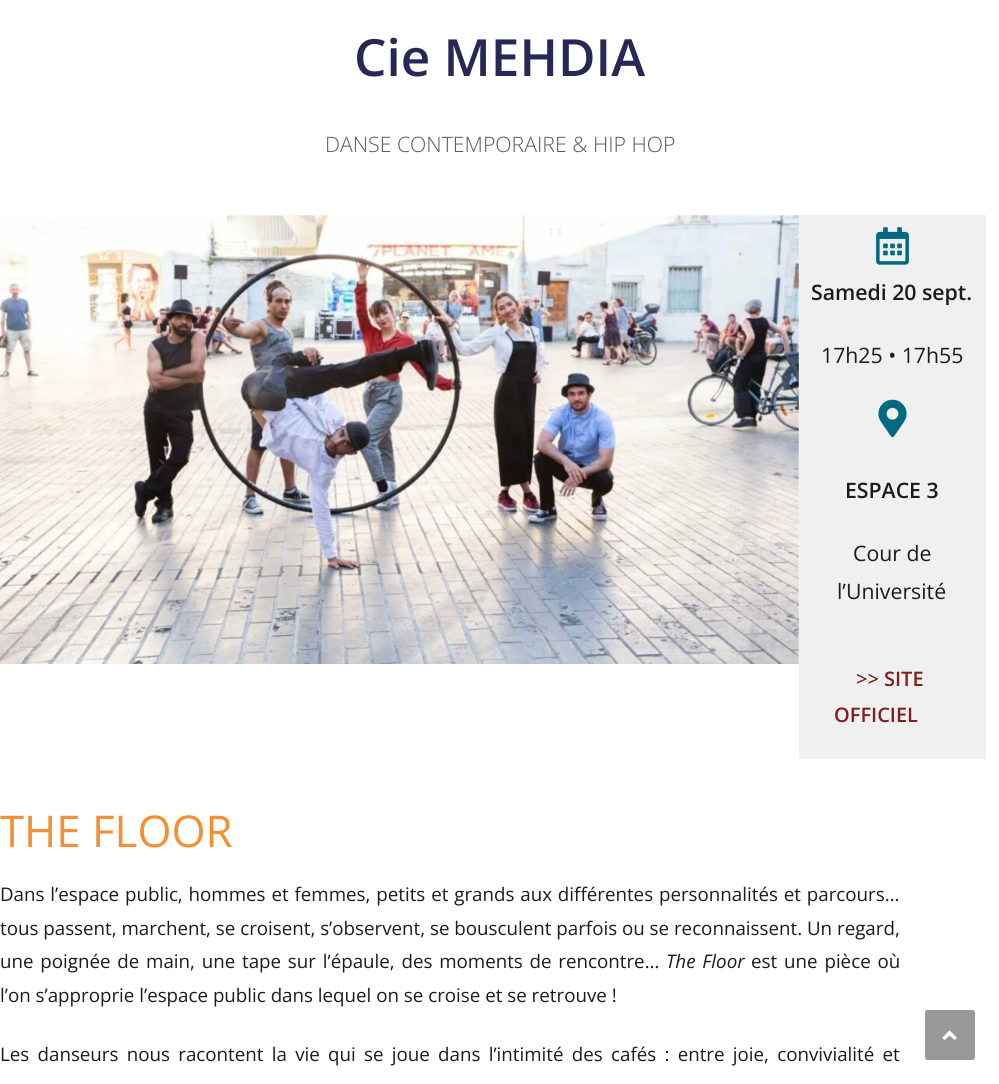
import math
import cairo


def use_color(cr, r, g, b):
  cr.set_source_rgb(r / 255, g / 255, b / 255)

def text(cr, x, y, s, family, size, color, bold=False, italic=False):
  cr.select_font_face(family, cairo.FONT_SLANT_ITALIC if italic else cairo.FONT_SLANT_NORMAL, cairo.FONT_WEIGHT_BOLD if bold else cairo.FONT_WEIGHT_NORMAL)
  cr.set_font_size(size)
  use_color(cr, *color)
  cr.move_to(x, y)
  cr.show_text(s)

def spaced_text(cr, x, y, s, letter, word):
  cr.move_to(x, y)
  for ch in s:
    cr.show_text(ch)
    cr.rel_move_to(letter + word * (ch == ' '), 0)

def box(cr, x, y, w, h, *color):
  use_color(cr, *color)
  cr.rectangle(x, y, w, h)
  cr.fill()

def round_rect(cr, x, y, w, h, r):
  cr.new_sub_path()
  for i, (u, v) in enumerate([(x + w - r, y + h - r), (x + r, y + h - r), (x + r, y + r), (x + w - r, y + r)]):
    cr.arc(u, v, r, i * math.pi / 2, (i + 1) * math.pi / 2)
  cr.close_path()

def picture(cr, path, x, y, w, h):
  cr.save()
  cr.set_source_surface(cairo.ImageSurface.create_from_png(path), x, y)
  cr.rectangle(x, y, w, h)
  cr.fill()
  cr.restore()

def draw(cr):
  use_color(cr, 255, 255, 255)
  cr.paint()
  picture(cr, "img_01.png", 0, 215, 799, 449)
  box(cr, 799, 215, 187, 544, 240, 240, 240)
  picture(cr, "img_02.png", 876, 227, 33, 38)
  picture(cr, "img_03.png", 878, 399, 29, 39)
  use_color(cr, 153, 153, 153)
  round_rect(cr, 925, 1010, 50, 50, 2.5)
  cr.fill()
  picture(cr, "img_04.png", 942, 1030, 15, 10)
  text(cr, 354, 76, "Cie MEHDIA", "Open Sans SemiBold", 51.25, (40, 40, 86))
  text(cr, 325, 152, "DANSE CONTEMPORAIRE & HIP HOP", "Open Sans Light", 21.25, (84, 89, 95))
  text(cr, 811, 300, "Samedi 20 sept.", "Open Sans SemiBold", 21.25, (27, 27, 27))
  text(cr, 821, 363, "17h25 • 17h55", "Open Sans", 21.25, (27, 27, 27))
  text(cr, 845, 498, "ESPACE 3", "Open Sans SemiBold", 21.25, (27, 27, 27))
  text(cr, 853, 561, "Cour de", "Open Sans", 21.25, (27, 27, 27))
  text(cr, 837, 599, "l’Université", "Open Sans", 21.25, (27, 27, 27))
  text(cr, 856, 686, ">>", "Open Sans Medium", 20, (129, 30, 30))
  text(cr, 884, 686, "SITE", "Open Sans SemiBold", 20, (129, 30, 30))
  text(cr, 834, 722, "OFFICIEL", "Open Sans SemiBold", 20, (129, 30, 30))
  text(cr, 0, 847, "THE FLOOR", "Open Sans", 43.75, (243, 144, 50))
  cr.set_font_size(18.75)
  use_color(cr, 27, 27, 27)
  spaced_text(cr, 0, 901, "Dans l’espace public, hommes et femmes, petits et grands aux différentes personnalités et parcours…", 0, 1)
  text(cr, 0, 935, "tous passent, marchent, se croisent, s’observent, se bousculent parfois ou se reconnaissent. Un regard,", "Open Sans", 18.75, (27, 27, 27))
  spaced_text(cr, 0, 968, "une poignée de main, une tape sur l’épaule, des moments de rencontre…", 0, 1.9)
  cr.select_font_face("Open Sans", cairo.FONT_SLANT_ITALIC)
  spaced_text(cr, 666, 968, "The Floor", 0, 2)
  cr.select_font_face("Open Sans")
  spaced_text(cr, 751, 968, "est une pièce où", 0, 2)
  text(cr, 0, 1002, "l’on s’approprie l’espace public dans lequel on se croise et se retrouve !", "Open Sans", 18.75, (27, 27, 27))
  spaced_text(cr, 0, 1061, "Les danseurs nous racontent la vie qui se joue dans l’intimité des cafés : entre joie, convivialité et", 0, 3.4)


surface = cairo.ImageSurface(cairo.FORMAT_RGB24, 999, 1084)
cr = cairo.Context(surface)
options = cairo.FontOptions()
options.set_hint_metrics(cairo.HINT_METRICS_OFF)
options.set_hint_style(cairo.HINT_STYLE_NONE)
cr.set_font_options(options)
cr.set_miter_limit(4)
draw(cr)
surface.write_to_png("out.png")
